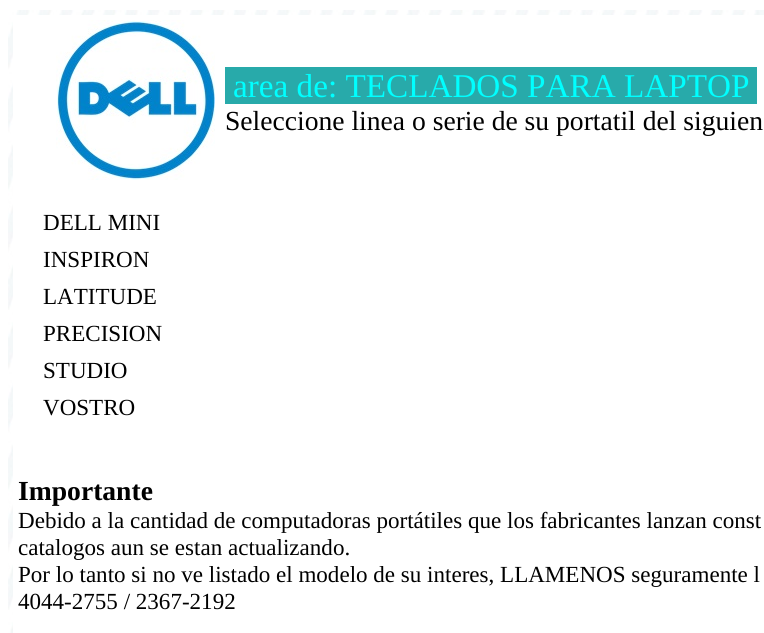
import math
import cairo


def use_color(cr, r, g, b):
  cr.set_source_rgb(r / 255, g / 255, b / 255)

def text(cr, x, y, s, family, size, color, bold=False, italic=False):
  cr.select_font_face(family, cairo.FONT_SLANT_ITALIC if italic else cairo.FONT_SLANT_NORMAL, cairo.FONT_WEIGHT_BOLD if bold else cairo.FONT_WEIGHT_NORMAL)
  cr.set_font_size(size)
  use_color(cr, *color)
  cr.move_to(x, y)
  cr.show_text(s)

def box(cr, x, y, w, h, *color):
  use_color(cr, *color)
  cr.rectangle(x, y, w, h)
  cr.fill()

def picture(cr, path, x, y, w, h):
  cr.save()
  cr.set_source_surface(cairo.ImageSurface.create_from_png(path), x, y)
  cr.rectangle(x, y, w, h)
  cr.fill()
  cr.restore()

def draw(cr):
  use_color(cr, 255, 255, 255)
  cr.paint()
  picture(cr, "img_01.png", 8, 10, 756, 623)
  box(cr, 13, 15, 751, 618, 255, 255, 255)
  picture(cr, "img_02.png", 56, 20, 159, 160)
  box(cr, 225, 67, 532, 37, 40, 170, 170)
  text(cr, 233, 97, "area de: TECLADOS PARA LAPTOP", "Liberation Serif", 33.2, (0, 255, 255))
  text(cr, 225, 130, "Seleccione linea o serie de su portatil del siguien", "Liberation Serif", 27.6, (0, 0, 0))
  text(cr, 43, 230, "DELL MINI", "Liberation Serif", 23.05, (0, 0, 0))
  text(cr, 43, 267, "INSPIRON", "Liberation Serif", 23.05, (0, 0, 0))
  text(cr, 43, 304, "LATITUDE", "Liberation Serif", 23.05, (0, 0, 0))
  text(cr, 43, 341, "PRECISION", "Liberation Serif", 23.05, (0, 0, 0))
  text(cr, 43, 378, "STUDIO", "Liberation Serif", 23.05, (0, 0, 0))
  text(cr, 43, 415, "VOSTRO", "Liberation Serif", 23.05, (0, 0, 0))
  text(cr, 18, 500, "Importante", "Liberation Serif", 27.6, (0, 0, 0), bold=True)
  text(cr, 18, 528, "Debido a la cantidad de computadoras portátiles que los fabricantes lanzan const", "Liberation Serif", 23.05, (0, 0, 0))
  text(cr, 18, 555, "catalogos aun se estan actualizando.", "Liberation Serif", 23.05, (0, 0, 0))
  text(cr, 18, 582, "Por lo tanto si no ve listado el modelo de su interes, LLAMENOS seguramente l", "Liberation Serif", 23.05, (0, 0, 0))
  text(cr, 18, 609, "4044-2755 / 2367-2192", "Liberation Serif", 23.05, (0, 0, 0))


surface = cairo.ImageSurface(cairo.FORMAT_RGB24, 764, 633)
cr = cairo.Context(surface)
options = cairo.FontOptions()
options.set_hint_metrics(cairo.HINT_METRICS_OFF)
options.set_hint_style(cairo.HINT_STYLE_NONE)
cr.set_font_options(options)
cr.set_miter_limit(4)
draw(cr)
surface.write_to_png("out.png")
